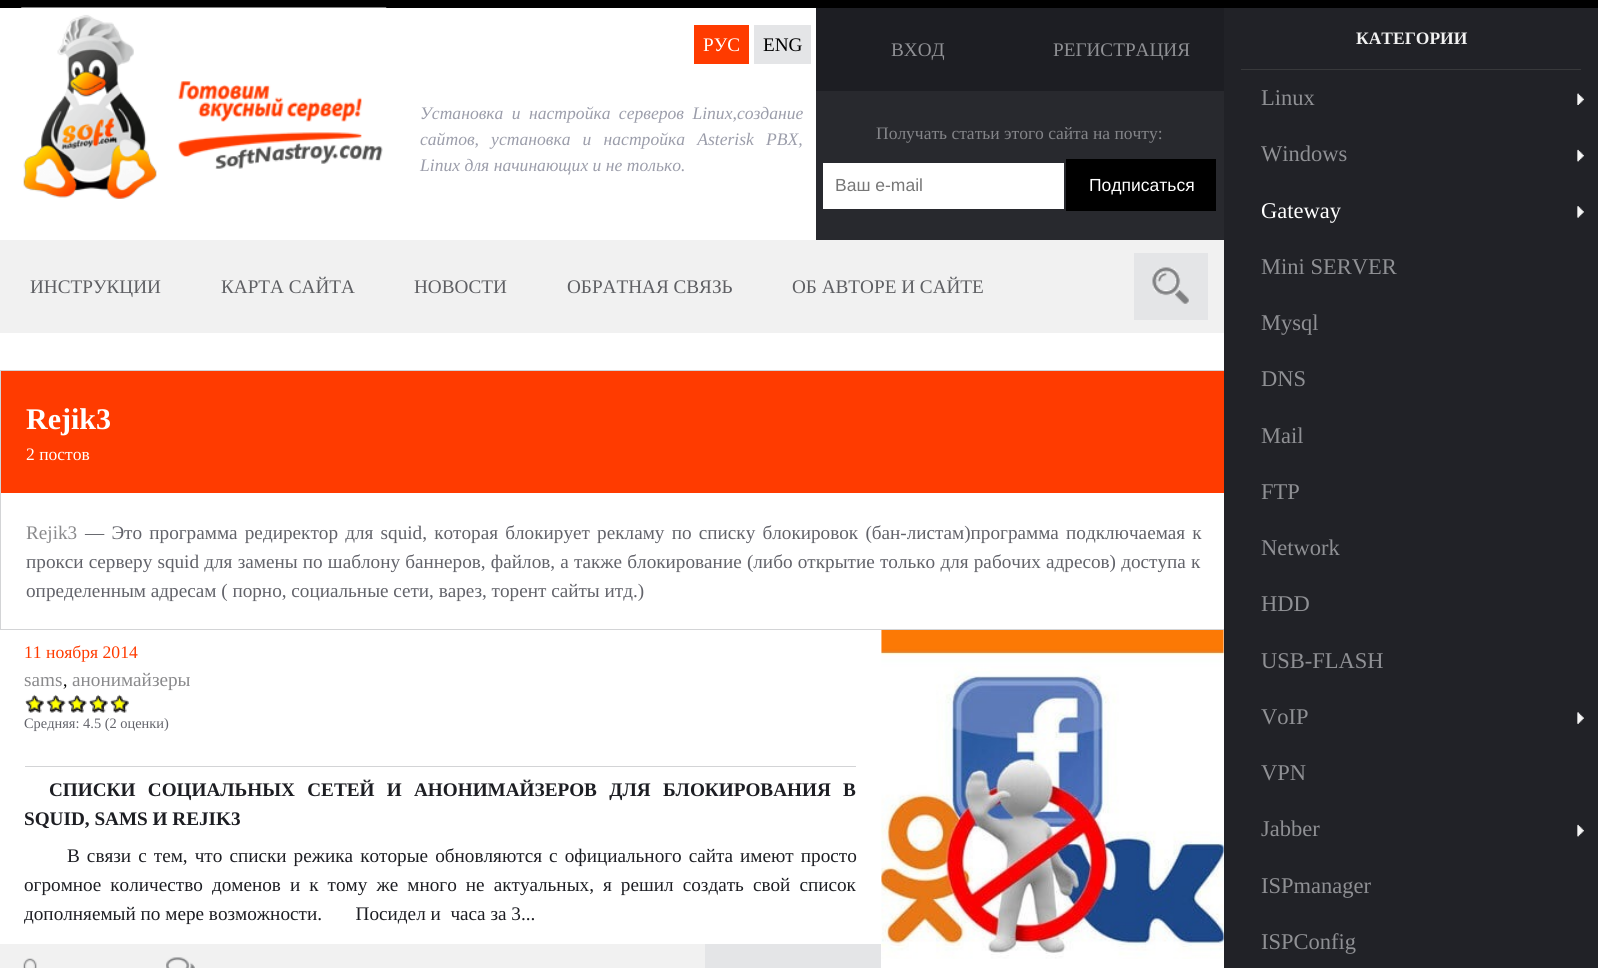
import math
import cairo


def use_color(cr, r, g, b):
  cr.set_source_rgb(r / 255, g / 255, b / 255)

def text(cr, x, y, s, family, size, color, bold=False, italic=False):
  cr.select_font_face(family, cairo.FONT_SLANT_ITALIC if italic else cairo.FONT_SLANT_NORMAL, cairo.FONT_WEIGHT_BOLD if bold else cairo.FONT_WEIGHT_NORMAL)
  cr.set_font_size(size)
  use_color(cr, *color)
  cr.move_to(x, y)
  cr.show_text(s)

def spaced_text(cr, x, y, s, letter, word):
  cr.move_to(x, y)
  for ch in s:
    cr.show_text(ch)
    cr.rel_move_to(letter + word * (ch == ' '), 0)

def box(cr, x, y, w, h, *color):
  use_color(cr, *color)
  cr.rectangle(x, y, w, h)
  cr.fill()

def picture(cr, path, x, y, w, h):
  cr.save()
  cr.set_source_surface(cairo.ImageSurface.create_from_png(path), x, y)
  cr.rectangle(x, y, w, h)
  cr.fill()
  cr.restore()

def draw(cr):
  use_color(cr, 0, 0, 0)
  cr.paint()
  box(cr, 0, 8, 1224, 960, 255, 255, 255)
  picture(cr, "img_01.png", 21, 7, 366, 192)
  box(cr, 694, 25, 55, 39, 255, 59, 0)
  box(cr, 754, 25, 57, 39, 228, 229, 231)
  box(cr, 816, 91, 408, 149, 40, 41, 46)
  box(cr, 816, 8, 408, 83, 29, 30, 35)
  box(cr, 823, 163, 241, 46, 255, 255, 255)
  box(cr, 1066, 159, 150, 52, 0, 0, 0)
  box(cr, 0, 240, 1224, 93, 241, 241, 241)
  box(cr, 1134, 253, 74, 67, 228, 229, 231)
  picture(cr, "img_02.png", 1152, 267, 37, 37)
  box(cr, 1224, 8, 374, 960, 33, 34, 39)
  cr.save()
  cr.rectangle(0, 370, 1224, 260)
  cr.clip()
  cr.rectangle(0.5, 370.5, 1225, 259)
  use_color(cr, 211, 212, 214)
  cr.set_line_width(1)
  cr.stroke()
  cr.restore()
  box(cr, 1, 371, 1223, 122, 255, 59, 0)
  picture(cr, "img_03.png", 25, 694, 19, 19)
  picture(cr, "img_04.png", 25, 694, 19, 19)
  picture(cr, "img_05.png", 46, 695, 20, 18)
  picture(cr, "img_06.png", 46, 694, 20, 19)
  picture(cr, "img_07.png", 67, 695, 20, 18)
  picture(cr, "img_08.png", 67, 695, 20, 18)
  picture(cr, "img_09.png", 89, 695, 19, 18)
  picture(cr, "img_10.png", 89, 694, 19, 19)
  picture(cr, "img_11.png", 110, 694, 19, 19)
  picture(cr, "img_12.png", 110, 694, 19, 19)
  box(cr, 25, 766, 831, 1, 211, 212, 214)
  picture(cr, "img_13.png", 881, 630, 343, 329)
  box(cr, 0, 944, 705, 24, 241, 241, 241)
  picture(cr, "img_14.png", 23, 958, 14, 10)
  picture(cr, "img_15.png", 166, 957, 29, 11)
  box(cr, 705, 944, 176, 24, 228, 229, 231)
  box(cr, 1241, 69, 340, 1, 56, 57, 59)
  picture(cr, "img_16.png", 1577, 93, 7, 12)
  picture(cr, "img_17.png", 1577, 93, 7, 12)
  picture(cr, "img_18.png", 1577, 149, 7, 13)
  picture(cr, "img_19.png", 1577, 149, 7, 13)
  picture(cr, "img_20.png", 1577, 206, 7, 12)
  picture(cr, "img_21.png", 1577, 206, 7, 12)
  picture(cr, "img_22.png", 1577, 712, 7, 12)
  picture(cr, "img_23.png", 1577, 712, 7, 12)
  picture(cr, "img_18.png", 1577, 824, 7, 13)
  picture(cr, "img_19.png", 1577, 824, 7, 13)
  text(cr, 703, 51, "РУС", "Liberation Serif", 19.2, (255, 255, 255))
  text(cr, 763, 51, "ENG", "Liberation Serif", 19.2, (0, 0, 0))
  cr.select_font_face("Liberation Serif", cairo.FONT_SLANT_ITALIC)
  cr.set_font_size(17.6)
  use_color(cr, 155, 157, 170)
  spaced_text(cr, 420, 119, "Установка и настройка серверов Linux,создание", 0, 4)
  spaced_text(cr, 420, 145, "сайтов, установка и настройка Asterisk PBX,", 0, 7.75)
  text(cr, 420, 171, "Linux для начинающих и не только.", "Liberation Serif", 17.6, (155, 157, 170), italic=True)
  text(cr, 891, 56, "ВХОД", "Liberation Serif", 19.2, (143, 144, 148))
  text(cr, 1053, 56, "РЕГИСТРАЦИЯ", "Liberation Serif", 19.2, (143, 144, 148))
  text(cr, 876, 139, "Получать статьи этого сайта на почту:", "Liberation Serif", 17.5, (132, 133, 137))
  text(cr, 835, 191, "Ваш e-mail", "Liberation Sans", 17.5, (119, 119, 119))
  text(cr, 1089, 191, "Подписаться", "Liberation Sans", 17.5, (255, 255, 255))
  text(cr, 30, 293, "ИНСТРУКЦИИ", "Liberation Serif", 19.2, (94, 95, 99))
  text(cr, 221, 293, "КАРТА САЙТА", "Liberation Serif", 19.2, (94, 95, 99))
  text(cr, 414, 293, "НОВОСТИ", "Liberation Serif", 19.2, (94, 95, 99))
  text(cr, 567, 293, "ОБРАТНАЯ СВЯЗЬ", "Liberation Serif", 19.2, (94, 95, 99))
  text(cr, 792, 293, "ОБ АВТОРЕ И САЙТЕ", "Liberation Serif", 19.2, (94, 95, 99))
  text(cr, 26, 429, "Rejik3", "Liberation Serif", 30, (255, 255, 255), bold=True)
  text(cr, 26, 460, "2 постов", "Liberation Serif", 17.5, (255, 255, 255))
  text(cr, 26, 539, "Rejik3", "Liberation Serif", 19.2, (138, 138, 140))
  use_color(cr, 98, 99, 106)
  spaced_text(cr, 85, 539, "— Это программа редиректор для squid, которая блокирует рекламу по списку блокировок (бан-листам)программа подключаемая к", 0, 2.4)
  spaced_text(cr, 26, 568, "прокси серверу squid для замены по шаблону баннеров, файлов, а также блокирование (либо открытие только для рабочих адресов) доступа к", 0, 0.4)
  text(cr, 26, 597, "определенным адресам ( порно, социальные сети, варез, торент сайты итд.)", "Liberation Serif", 19.2, (98, 99, 106))
  text(cr, 24, 658, "11 ноября 2014", "Liberation Serif", 17.6, (255, 59, 0))
  text(cr, 24, 686, "sams", "Liberation Serif", 19.2, (138, 138, 140))
  text(cr, 63, 686, ",", "Liberation Serif", 17.5, (0, 0, 0))
  text(cr, 72, 686, "анонимайзеры", "Liberation Serif", 19.2, (138, 138, 140))
  text(cr, 24, 728, "Средняя: 4.5 (2 оценки)", "Liberation Serif", 14.4, (98, 99, 106))
  cr.select_font_face("Liberation Serif", cairo.FONT_SLANT_NORMAL, cairo.FONT_WEIGHT_BOLD)
  cr.set_font_size(19.2)
  use_color(cr, 29, 30, 35)
  spaced_text(cr, 49, 796, "СПИСКИ СОЦИАЛЬНЫХ СЕТЕЙ И АНОНИМАЙЗЕРОВ ДЛЯ БЛОКИРОВАНИЯ В", 0, 7.5)
  text(cr, 24, 825, "SQUID, SAMS И REJIK3", "Liberation Serif", 19.2, (29, 30, 35), bold=True)
  cr.select_font_face("Liberation Serif")
  spaced_text(cr, 67, 862, "В связи с тем, что списки режика которые обновляются с официального сайта имеют просто", 0, 2.25)
  spaced_text(cr, 24, 891, "огромное количество доменов и к тому же много не актуальных, я решил создать свой список", 0, 4.25)
  text(cr, 24, 920, "дополняемый по мере возможности.       Посидел и  часа за 3...", "Liberation Serif", 19.2, (29, 30, 35))
  text(cr, 1356, 44, "КАТЕГОРИИ", "Liberation Serif", 17.5, (241, 241, 241), bold=True)
  text(cr, 1261, 105, "Linux", "Liberation Serif", 22.5, (143, 144, 148))
  text(cr, 1261, 161, "Windows", "Liberation Serif", 22.5, (143, 144, 148))
  text(cr, 1261, 218, "Gateway", "Liberation Serif", 22.5, (255, 255, 255))
  text(cr, 1261, 274, "Mini SERVER", "Liberation Serif", 22.5, (143, 144, 148))
  text(cr, 1261, 330, "Mysql", "Liberation Serif", 22.5, (143, 144, 148))
  text(cr, 1261, 386, "DNS", "Liberation Serif", 22.5, (143, 144, 148))
  text(cr, 1261, 443, "Mail", "Liberation Serif", 22.5, (143, 144, 148))
  text(cr, 1261, 499, "FTP", "Liberation Serif", 22.5, (143, 144, 148))
  text(cr, 1261, 555, "Network", "Liberation Serif", 22.5, (143, 144, 148))
  text(cr, 1261, 611, "HDD", "Liberation Serif", 22.5, (143, 144, 148))
  text(cr, 1261, 668, "USB-FLASH", "Liberation Serif", 22.5, (143, 144, 148))
  text(cr, 1261, 724, "VoIP", "Liberation Serif", 22.5, (143, 144, 148))
  text(cr, 1261, 780, "VPN", "Liberation Serif", 22.5, (143, 144, 148))
  text(cr, 1261, 836, "Jabber", "Liberation Serif", 22.5, (143, 144, 148))
  text(cr, 1261, 893, "ISPmanager", "Liberation Serif", 22.5, (143, 144, 148))
  text(cr, 1261, 949, "ISPConfig", "Liberation Serif", 22.5, (143, 144, 148))


surface = cairo.ImageSurface(cairo.FORMAT_RGB24, 1598, 968)
cr = cairo.Context(surface)
options = cairo.FontOptions()
options.set_hint_metrics(cairo.HINT_METRICS_OFF)
options.set_hint_style(cairo.HINT_STYLE_NONE)
cr.set_font_options(options)
cr.set_miter_limit(4)
draw(cr)
surface.write_to_png("out.png")
